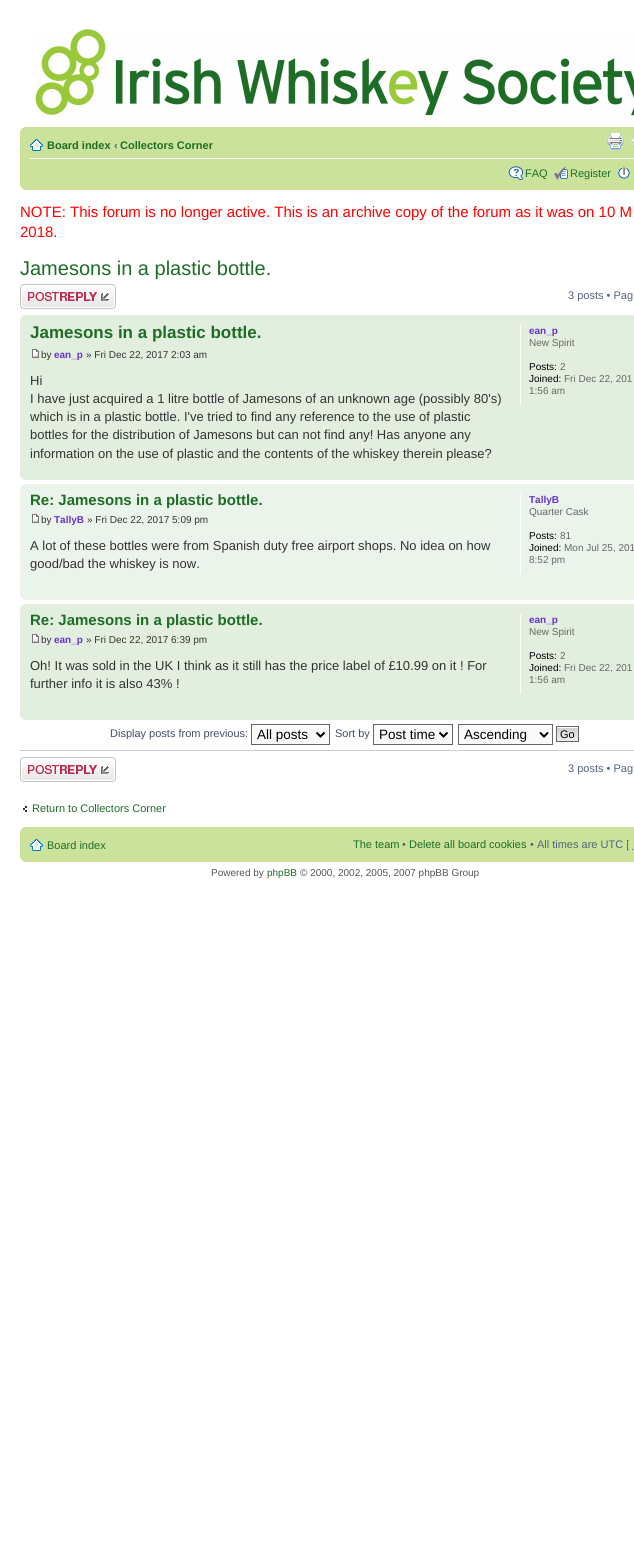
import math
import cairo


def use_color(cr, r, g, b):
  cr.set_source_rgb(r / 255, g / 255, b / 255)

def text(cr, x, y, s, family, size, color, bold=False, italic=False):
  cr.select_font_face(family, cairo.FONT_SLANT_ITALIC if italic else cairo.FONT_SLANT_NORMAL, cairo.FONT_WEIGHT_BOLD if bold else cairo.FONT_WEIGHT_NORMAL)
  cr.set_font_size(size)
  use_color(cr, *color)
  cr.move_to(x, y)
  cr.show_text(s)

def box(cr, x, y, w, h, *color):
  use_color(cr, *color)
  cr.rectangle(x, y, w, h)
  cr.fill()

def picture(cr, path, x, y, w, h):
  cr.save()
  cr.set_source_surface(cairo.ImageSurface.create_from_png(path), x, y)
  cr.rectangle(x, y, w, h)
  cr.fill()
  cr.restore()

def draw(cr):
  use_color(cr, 255, 255, 255)
  cr.paint()
  picture(cr, "img_01.png", 35, 29, 599, 87)
  box(cr, 20, 127, 614, 63, 202, 226, 154)
  picture(cr, "img_02.png", 20, 127, 5, 5)
  box(cr, 30, 158, 604, 1, 255, 255, 255)
  picture(cr, "img_03.png", 30, 139, 13, 12)
  picture(cr, "img_04.png", 607, 133, 17, 17)
  picture(cr, "img_05.png", 631, 139, 3, 6)
  picture(cr, "img_06.png", 508, 166, 16, 14)
  picture(cr, "img_07.png", 554, 167, 14, 13)
  picture(cr, "img_08.png", 618, 167, 12, 12)
  picture(cr, "img_09.png", 20, 185, 5, 5)
  picture(cr, "img_10.png", 20, 284, 96, 25)
  box(cr, 20, 315, 614, 165, 227, 239, 222)
  picture(cr, "img_11.png", 20, 315, 5, 5)
  picture(cr, "img_12.png", 32, 349, 7, 9)
  box(cr, 520, 325, 1, 80, 255, 255, 255)
  picture(cr, "img_13.png", 20, 475, 5, 5)
  box(cr, 20, 484, 614, 116, 235, 244, 235)
  picture(cr, "img_14.png", 20, 484, 5, 5)
  picture(cr, "img_15.png", 32, 514, 7, 9)
  box(cr, 520, 494, 1, 80, 255, 255, 255)
  picture(cr, "img_16.png", 20, 595, 5, 5)
  box(cr, 20, 604, 614, 116, 227, 239, 222)
  picture(cr, "img_11.png", 20, 604, 5, 5)
  picture(cr, "img_12.png", 32, 634, 7, 9)
  box(cr, 520, 614, 1, 80, 255, 255, 255)
  picture(cr, "img_13.png", 20, 715, 5, 5)
  use_color(cr, 250, 250, 250)
  cr.rectangle(251.5, 724.5, 78, 20)
  cr.fill_preserve()
  use_color(cr, 102, 102, 102)
  cr.set_line_width(1)
  cr.stroke()
  cr.new_path()
  cr.move_to(316.5, 732.5)
  cr.line_to(320.5, 736.5)
  cr.line_to(324.5, 732.5)
  use_color(cr, 0, 0, 0)
  cr.set_line_width(2)
  cr.stroke()
  use_color(cr, 250, 250, 250)
  cr.rectangle(373.5, 724.5, 79, 20)
  cr.fill_preserve()
  use_color(cr, 102, 102, 102)
  cr.set_line_width(1)
  cr.stroke()
  cr.new_path()
  cr.move_to(439.5, 732.5)
  cr.line_to(443.5, 736.5)
  cr.line_to(447.5, 732.5)
  use_color(cr, 0, 0, 0)
  cr.set_line_width(2)
  cr.stroke()
  use_color(cr, 250, 250, 250)
  cr.rectangle(458.5, 724.5, 94, 20)
  cr.fill_preserve()
  use_color(cr, 102, 102, 102)
  cr.set_line_width(1)
  cr.stroke()
  cr.new_path()
  cr.move_to(540, 732.5)
  cr.line_to(544, 736.5)
  cr.line_to(548, 732.5)
  use_color(cr, 0, 0, 0)
  cr.set_line_width(2)
  cr.stroke()
  picture(cr, "img_17.png", 557, 727, 21, 14)
  cr.rectangle(556.5, 726.5, 22, 15)
  use_color(cr, 102, 102, 102)
  cr.set_line_width(1)
  cr.stroke()
  box(cr, 20, 750, 614, 1, 204, 204, 204)
  picture(cr, "img_10.png", 20, 757, 96, 25)
  picture(cr, "img_18.png", 23, 806, 4, 6)
  box(cr, 20, 827, 614, 35, 202, 226, 154)
  picture(cr, "img_02.png", 20, 827, 5, 5)
  picture(cr, "img_03.png", 30, 839, 13, 12)
  cr.new_path()
  cr.move_to(632, 849.5)
  cr.line_to(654, 849.5)
  use_color(cr, 83, 100, 130)
  cr.set_dash([1, 1])
  cr.stroke()
  picture(cr, "img_09.png", 20, 857, 5, 5)
  text(cr, 47, 149, "Board index", "Liberation Sans", 11, (29, 109, 38), bold=True)
  text(cr, 114, 149, "‹", "Liberation Sans", 11, (83, 100, 130), bold=True)
  text(cr, 120, 149, "Collectors Corner", "Liberation Sans", 11, (29, 109, 38), bold=True)
  text(cr, 525, 177, "FAQ", "Liberation Sans", 11, (29, 109, 38))
  text(cr, 570, 177, "Register", "Liberation Sans", 11, (29, 109, 38))
  text(cr, 20, 217, "NOTE: This forum is no longer active. This is an archive copy of the forum as it was on 10 M", "Liberation Sans", 15, (255, 0, 0))
  text(cr, 20, 237, "2018.", "Liberation Sans", 15, (255, 0, 0))
  text(cr, 20, 275, "Jamesons in a plastic bottle.", "Liberation Sans", 20, (29, 109, 38))
  text(cr, 568, 299, "3 posts • Pag", "Liberation Sans", 11, (83, 100, 130))
  text(cr, 30, 338, "Jamesons in a plastic bottle.", "Liberation Sans", 17, (29, 109, 38), bold=True)
  text(cr, 41, 358, "by", "Liberation Sans", 10, (51, 51, 51))
  text(cr, 54, 358, "ean_p", "Liberation Sans", 10, (102, 51, 204), bold=True)
  text(cr, 86, 358, "» Fri Dec 22, 2017 2:03 am", "Liberation Sans", 10, (51, 51, 51))
  text(cr, 30, 385, "Hi", "Liberation Sans", 13, (51, 51, 51))
  text(cr, 30, 403, "I have just acquired a 1 litre bottle of Jamesons of an unknown age (possibly 80's)", "Liberation Sans", 13, (51, 51, 51))
  text(cr, 30, 421, "which is in a plastic bottle. I've tried to find any reference to the use of plastic", "Liberation Sans", 13, (51, 51, 51))
  text(cr, 30, 439, "bottles for the distribution of Jamesons but can not find any! Has anyone any", "Liberation Sans", 13, (51, 51, 51))
  text(cr, 30, 458, "information on the use of plastic and the contents of the whiskey therein please?", "Liberation Sans", 13, (51, 51, 51))
  text(cr, 529, 334, "ean_p", "Liberation Sans", 10, (102, 51, 204), bold=True)
  text(cr, 529, 346, "New Spirit", "Liberation Sans", 10, (102, 102, 102))
  text(cr, 529, 370, "Posts:", "Liberation Sans", 10, (0, 0, 0))
  text(cr, 560, 370, "2", "Liberation Sans", 10, (102, 102, 102))
  text(cr, 529, 382, "Joined:", "Liberation Sans", 10, (0, 0, 0))
  text(cr, 564, 382, "Fri Dec 22, 201", "Liberation Sans", 10, (102, 102, 102))
  text(cr, 529, 394, "1:56 am", "Liberation Sans", 10, (102, 102, 102))
  text(cr, 30, 505, "Re: Jamesons in a plastic bottle.", "Liberation Sans", 15, (29, 109, 38), bold=True)
  text(cr, 41, 523, "by", "Liberation Sans", 10, (51, 51, 51))
  text(cr, 54, 523, "TallyB", "Liberation Sans", 10, (102, 51, 204), bold=True)
  text(cr, 87, 523, "» Fri Dec 22, 2017 5:09 pm", "Liberation Sans", 10, (51, 51, 51))
  text(cr, 30, 550, "A lot of these bottles were from Spanish duty free airport shops. No idea on how", "Liberation Sans", 13, (51, 51, 51))
  text(cr, 30, 568, "good/bad the whiskey is now.", "Liberation Sans", 13, (51, 51, 51))
  text(cr, 529, 503, "TallyB", "Liberation Sans", 10, (102, 51, 204), bold=True)
  text(cr, 529, 515, "Quarter Cask", "Liberation Sans", 10, (102, 102, 102))
  text(cr, 529, 539, "Posts:", "Liberation Sans", 10, (0, 0, 0))
  text(cr, 560, 539, "81", "Liberation Sans", 10, (102, 102, 102))
  text(cr, 529, 551, "Joined:", "Liberation Sans", 10, (0, 0, 0))
  text(cr, 564, 551, "Mon Jul 25, 201", "Liberation Sans", 10, (102, 102, 102))
  text(cr, 529, 563, "8:52 pm", "Liberation Sans", 10, (102, 102, 102))
  text(cr, 30, 625, "Re: Jamesons in a plastic bottle.", "Liberation Sans", 15, (29, 109, 38), bold=True)
  text(cr, 41, 643, "by", "Liberation Sans", 10, (51, 51, 51))
  text(cr, 54, 643, "ean_p", "Liberation Sans", 10, (102, 51, 204), bold=True)
  text(cr, 86, 643, "» Fri Dec 22, 2017 6:39 pm", "Liberation Sans", 10, (51, 51, 51))
  text(cr, 30, 670, "Oh! It was sold in the UK I think as it still has the price label of £10.99 on it ! For", "Liberation Sans", 13, (51, 51, 51))
  text(cr, 30, 688, "further info it is also 43% !", "Liberation Sans", 13, (51, 51, 51))
  text(cr, 529, 623, "ean_p", "Liberation Sans", 10, (102, 51, 204), bold=True)
  text(cr, 529, 635, "New Spirit", "Liberation Sans", 10, (102, 102, 102))
  text(cr, 529, 659, "Posts:", "Liberation Sans", 10, (0, 0, 0))
  text(cr, 560, 659, "2", "Liberation Sans", 10, (102, 102, 102))
  text(cr, 529, 671, "Joined:", "Liberation Sans", 10, (0, 0, 0))
  text(cr, 564, 671, "Fri Dec 22, 201", "Liberation Sans", 10, (102, 102, 102))
  text(cr, 529, 683, "1:56 am", "Liberation Sans", 10, (102, 102, 102))
  text(cr, 110, 737, "Display posts from previous:", "Liberation Sans", 11, (66, 80, 103))
  text(cr, 257, 739, "All posts", "Liberation Sans", 13.5, (0, 0, 0))
  text(cr, 335, 737, "Sort by", "Liberation Sans", 11, (66, 80, 103))
  text(cr, 379, 739, "Post time", "Liberation Sans", 13.5, (0, 0, 0))
  text(cr, 464, 739, "Ascending", "Liberation Sans", 13.5, (0, 0, 0))
  text(cr, 560, 738, "Go", "Liberation Sans", 11, (0, 0, 0))
  text(cr, 568, 772, "3 posts • Pag", "Liberation Sans", 11, (83, 100, 130))
  text(cr, 32, 812, "Return to Collectors Corner", "Liberation Sans", 11, (29, 109, 38))
  text(cr, 47, 849, "Board index", "Liberation Sans", 11, (29, 109, 38))
  text(cr, 353, 848, "The team", "Liberation Sans", 11, (29, 109, 38))
  text(cr, 402, 848, "•", "Liberation Sans", 11, (83, 100, 130))
  text(cr, 409, 848, "Delete all board cookies", "Liberation Sans", 11, (29, 109, 38))
  text(cr, 530, 848, "• All times are UTC [", "Liberation Sans", 11, (83, 100, 130))
  text(cr, 211, 876, "Powered by", "Liberation Sans", 10, (85, 85, 85))
  text(cr, 267, 876, "phpBB", "Liberation Sans", 10, (29, 109, 38))
  text(cr, 300, 876, "© 2000, 2002, 2005, 2007 phpBB Group", "Liberation Sans", 10, (85, 85, 85))


surface = cairo.ImageSurface(cairo.FORMAT_RGB24, 634, 1566)
cr = cairo.Context(surface)
options = cairo.FontOptions()
options.set_hint_metrics(cairo.HINT_METRICS_OFF)
options.set_hint_style(cairo.HINT_STYLE_NONE)
cr.set_font_options(options)
cr.set_miter_limit(4)
draw(cr)
surface.write_to_png("out.png")
